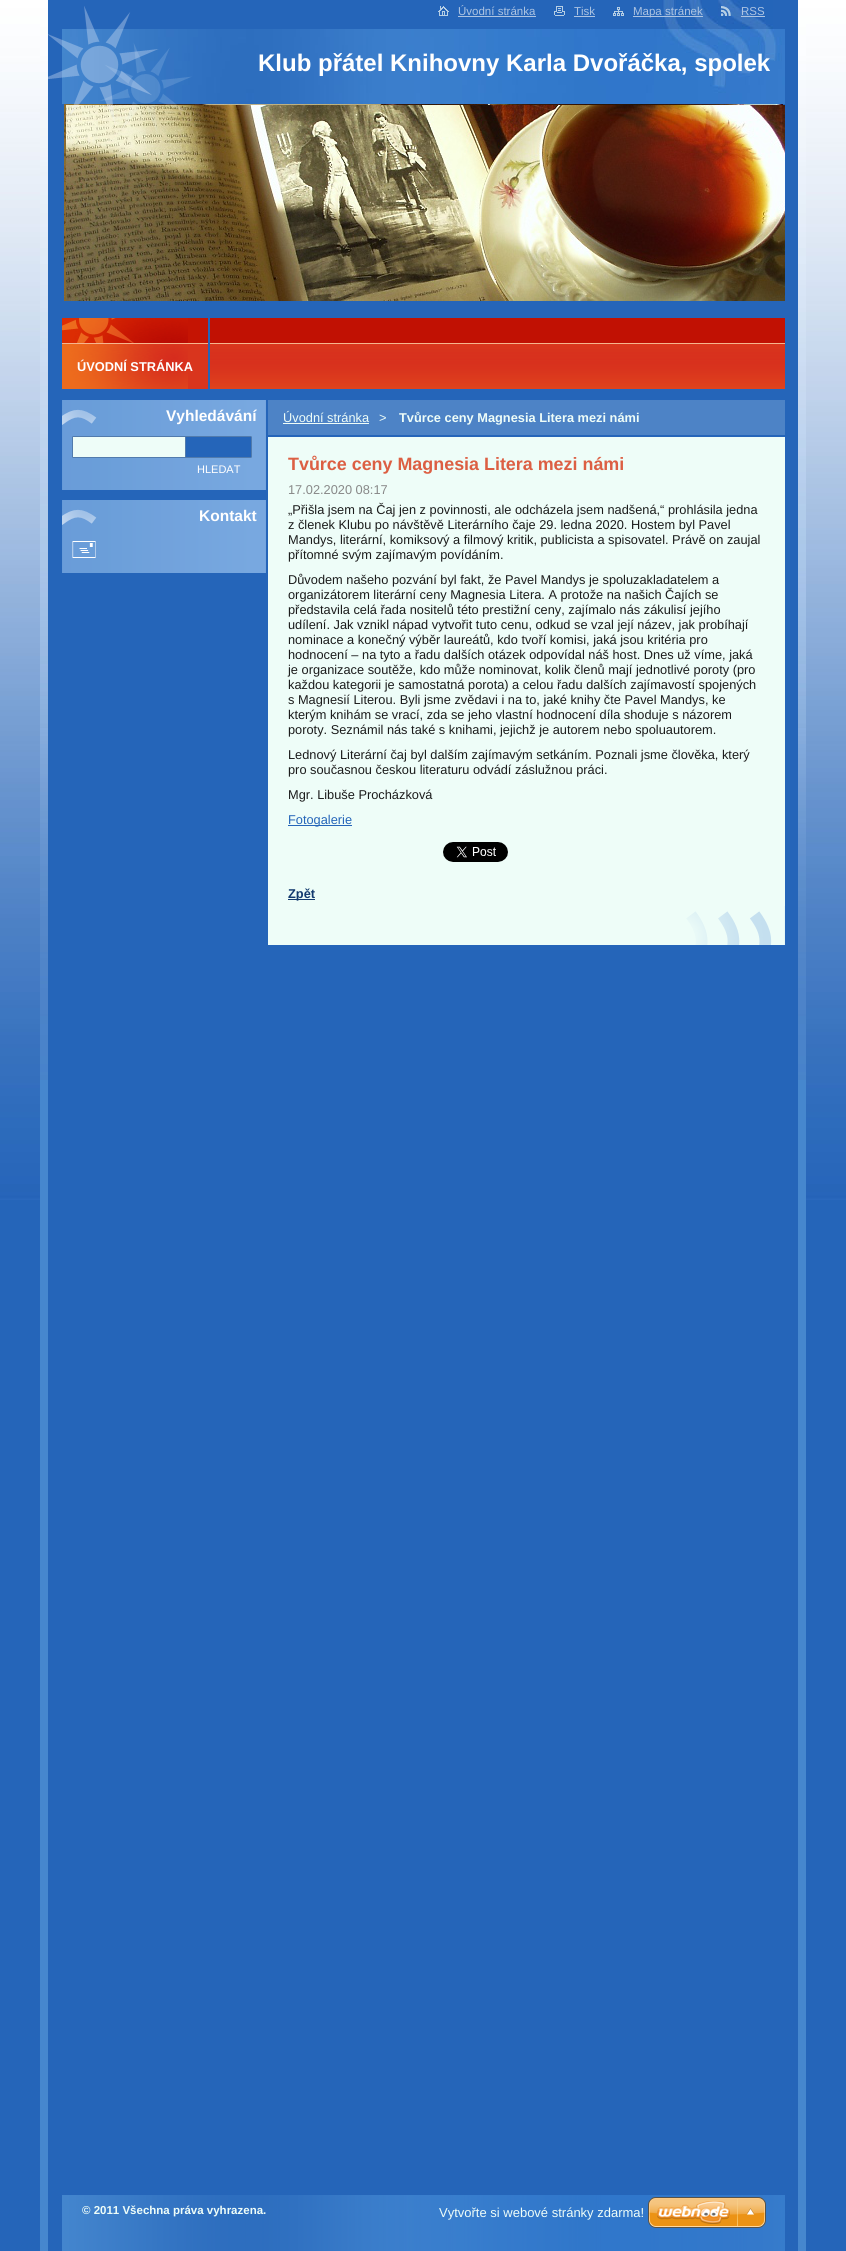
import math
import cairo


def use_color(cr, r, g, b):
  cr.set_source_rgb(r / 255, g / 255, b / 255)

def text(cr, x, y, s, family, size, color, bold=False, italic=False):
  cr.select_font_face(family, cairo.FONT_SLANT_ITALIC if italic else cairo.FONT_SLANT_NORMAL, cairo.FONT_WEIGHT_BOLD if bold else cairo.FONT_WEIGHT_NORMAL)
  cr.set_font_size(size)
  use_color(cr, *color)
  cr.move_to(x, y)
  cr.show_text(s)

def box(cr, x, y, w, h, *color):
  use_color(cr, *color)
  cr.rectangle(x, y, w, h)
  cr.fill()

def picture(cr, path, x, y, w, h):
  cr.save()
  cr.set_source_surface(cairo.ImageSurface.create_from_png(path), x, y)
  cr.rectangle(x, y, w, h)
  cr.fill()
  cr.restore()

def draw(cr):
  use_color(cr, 37, 101, 185)
  cr.paint()
  picture(cr, "img_01.png", 0, 0, 846, 1200)
  box(cr, 40, 1080, 766, 1171, 70, 135, 206)
  picture(cr, "img_02.png", 40, 0, 766, 1080)
  box(cr, 48, 0, 750, 2251, 37, 101, 185)
  picture(cr, "img_03.png", 662, 0, 111, 29)
  picture(cr, "img_09.png", 62, 29, 723, 75)
  picture(cr, "img_10.png", 64, 104, 721, 197)
  picture(cr, "img_04.png", 48, 6, 144, 128)
  picture(cr, "img_05.png", 438, 6, 11, 10)
  box(cr, 458, 16, 78, 1, 173, 196, 226)
  picture(cr, "img_06.png", 554, 6, 11, 10)
  box(cr, 574, 16, 21, 1, 173, 196, 226)
  picture(cr, "img_07.png", 613, 7, 11, 9)
  box(cr, 633, 16, 70, 1, 173, 196, 226)
  picture(cr, "img_08.png", 721, 6, 10, 10)
  box(cr, 741, 16, 24, 1, 173, 196, 226)
  picture(cr, "img_11.png", 210, 318, 575, 71)
  box(cr, 188, 318, 20, 25, 197, 20, 3)
  picture(cr, "img_12.png", 62, 318, 126, 25)
  box(cr, 188, 344, 20, 45, 217, 53, 29)
  picture(cr, "img_13.png", 62, 344, 126, 45)
  box(cr, 62, 343, 146, 1, 246, 181, 142)
  picture(cr, "img_14.png", 62, 400, 204, 90)
  picture(cr, "img_15.png", 62, 409, 35, 16)
  picture(cr, "img_16.png", 72, 436, 180, 22)
  picture(cr, "img_17.png", 62, 500, 204, 73)
  picture(cr, "img_15.png", 62, 509, 35, 16)
  picture(cr, "img_18.png", 72, 541, 24, 17)
  box(cr, 268, 400, 517, 35, 77, 131, 198)
  box(cr, 283, 423, 86, 1, 238, 253, 248)
  box(cr, 268, 437, 517, 508, 238, 253, 248)
  picture(cr, "img_19.png", 686, 906, 99, 39)
  box(cr, 288, 825, 64, 1, 37, 101, 185)
  picture(cr, "img_20.png", 443, 842, 65, 20)
  box(cr, 288, 899, 27, 1, 19, 58, 110)
  picture(cr, "img_21.png", 62, 2195, 723, 56)
  picture(cr, "img_22.png", 648, 2197, 118, 31)
  text(cr, 458, 15, "Úvodní stránka", "Liberation Sans", 11.5, (173, 196, 226))
  text(cr, 574, 15, "Tisk", "Liberation Sans", 11.5, (173, 196, 226))
  text(cr, 633, 15, "Mapa stránek", "Liberation Sans", 11.5, (173, 196, 226))
  text(cr, 741, 15, "RSS", "Liberation Sans", 11.5, (173, 196, 226))
  text(cr, 258, 71, "Klub přátel Knihovny Karla Dvořáčka, spolek", "Liberation Sans", 24, (255, 255, 255), bold=True)
  text(cr, 77, 371, "ÚVODNÍ STRÁNKA", "Liberation Sans", 12.8, (255, 255, 255), bold=True)
  text(cr, 166, 421, "Vyhledávání", "Liberation Sans", 15.5, (255, 255, 255), bold=True)
  text(cr, 197, 473, "HLEDAT", "Liberation Sans", 11, (255, 255, 255))
  text(cr, 199, 521, "Kontakt", "Liberation Sans", 15.5, (255, 255, 255), bold=True)
  text(cr, 283, 422, "Úvodní stránka", "Liberation Sans", 12.8, (238, 253, 248))
  text(cr, 379, 422, ">", "Liberation Sans", 12.8, (238, 253, 248))
  text(cr, 399, 422, "Tvůrce ceny Magnesia Litera mezi námi", "Liberation Sans", 12.8, (238, 253, 248), bold=True)
  text(cr, 288, 470, "Tvůrce ceny Magnesia Litera mezi námi", "Liberation Sans", 17.9, (220, 95, 67), bold=True)
  text(cr, 288, 494, "17.02.2020 08:17", "Liberation Sans", 12.8, (136, 136, 136))
  text(cr, 288, 514, "„Přišla jsem na Čaj jen z povinnosti, ale odcházela jsem nadšená,“ prohlásila jedna", "Liberation Sans", 12.8, (27, 27, 27))
  text(cr, 288, 529, "z členek Klubu po návštěvě Literárního čaje 29. ledna 2020. Hostem byl Pavel", "Liberation Sans", 12.8, (27, 27, 27))
  text(cr, 288, 544, "Mandys, literární, komiksový a filmový kritik, publicista a spisovatel. Právě on zaujal", "Liberation Sans", 12.8, (27, 27, 27))
  text(cr, 288, 559, "přítomné svým zajímavým povídáním.", "Liberation Sans", 12.8, (27, 27, 27))
  text(cr, 288, 584, "Důvodem našeho pozvání byl fakt, že Pavel Mandys je spoluzakladatelem a", "Liberation Sans", 12.8, (27, 27, 27))
  text(cr, 288, 599, "organizátorem literární ceny Magnesia Litera. A protože na našich Čajích se", "Liberation Sans", 12.8, (27, 27, 27))
  text(cr, 288, 614, "představila celá řada nositelů této prestižní ceny, zajímalo nás zákulisí jejího", "Liberation Sans", 12.8, (27, 27, 27))
  text(cr, 288, 629, "udílení. Jak vznikl nápad vytvořit tuto cenu, odkud se vzal její název, jak probíhají", "Liberation Sans", 12.8, (27, 27, 27))
  text(cr, 288, 644, "nominace a konečný výběr laureátů, kdo tvoří komisi, jaká jsou kritéria pro", "Liberation Sans", 12.8, (27, 27, 27))
  text(cr, 288, 659, "hodnocení – na tyto a řadu dalších otázek odpovídal náš host. Dnes už víme, jaká", "Liberation Sans", 12.8, (27, 27, 27))
  text(cr, 288, 674, "je organizace soutěže, kdo může nominovat, kolik členů mají jednotlivé poroty (pro", "Liberation Sans", 12.8, (27, 27, 27))
  text(cr, 288, 689, "každou kategorii je samostatná porota) a celou řadu dalších zajímavostí spojených", "Liberation Sans", 12.8, (27, 27, 27))
  text(cr, 288, 704, "s Magnesií Literou. Byli jsme zvědavi i na to, jaké knihy čte Pavel Mandys, ke", "Liberation Sans", 12.8, (27, 27, 27))
  text(cr, 288, 719, "kterým knihám se vrací, zda se jeho vlastní hodnocení díla shoduje s názorem", "Liberation Sans", 12.8, (27, 27, 27))
  text(cr, 288, 734, "poroty. Seznámil nás také s knihami, jejichž je autorem nebo spoluautorem.", "Liberation Sans", 12.8, (27, 27, 27))
  text(cr, 288, 759, "Lednový Literární čaj byl dalším zajímavým setkáním. Poznali jsme člověka, který", "Liberation Sans", 12.8, (27, 27, 27))
  text(cr, 288, 774, "pro současnou českou literaturu odvádí záslužnou práci.", "Liberation Sans", 12.8, (27, 27, 27))
  text(cr, 288, 799, "Mgr. Libuše Procházková", "Liberation Sans", 12.8, (27, 27, 27))
  text(cr, 288, 824, "Fotogalerie", "Liberation Sans", 12.8, (37, 101, 185))
  text(cr, 288, 898, "Zpět", "Liberation Sans", 12.8, (19, 58, 110), bold=True)
  text(cr, 82, 2214, "© 2011 Všechna práva vyhrazena.", "Liberation Sans", 11.5, (238, 253, 248), bold=True)
  text(cr, 439, 2217, "Vytvořte si webové stránky zdarma!", "Liberation Sans", 13, (238, 253, 248))


surface = cairo.ImageSurface(cairo.FORMAT_RGB24, 846, 2251)
cr = cairo.Context(surface)
options = cairo.FontOptions()
options.set_hint_metrics(cairo.HINT_METRICS_OFF)
options.set_hint_style(cairo.HINT_STYLE_NONE)
cr.set_font_options(options)
cr.set_miter_limit(4)
draw(cr)
surface.write_to_png("out.png")
